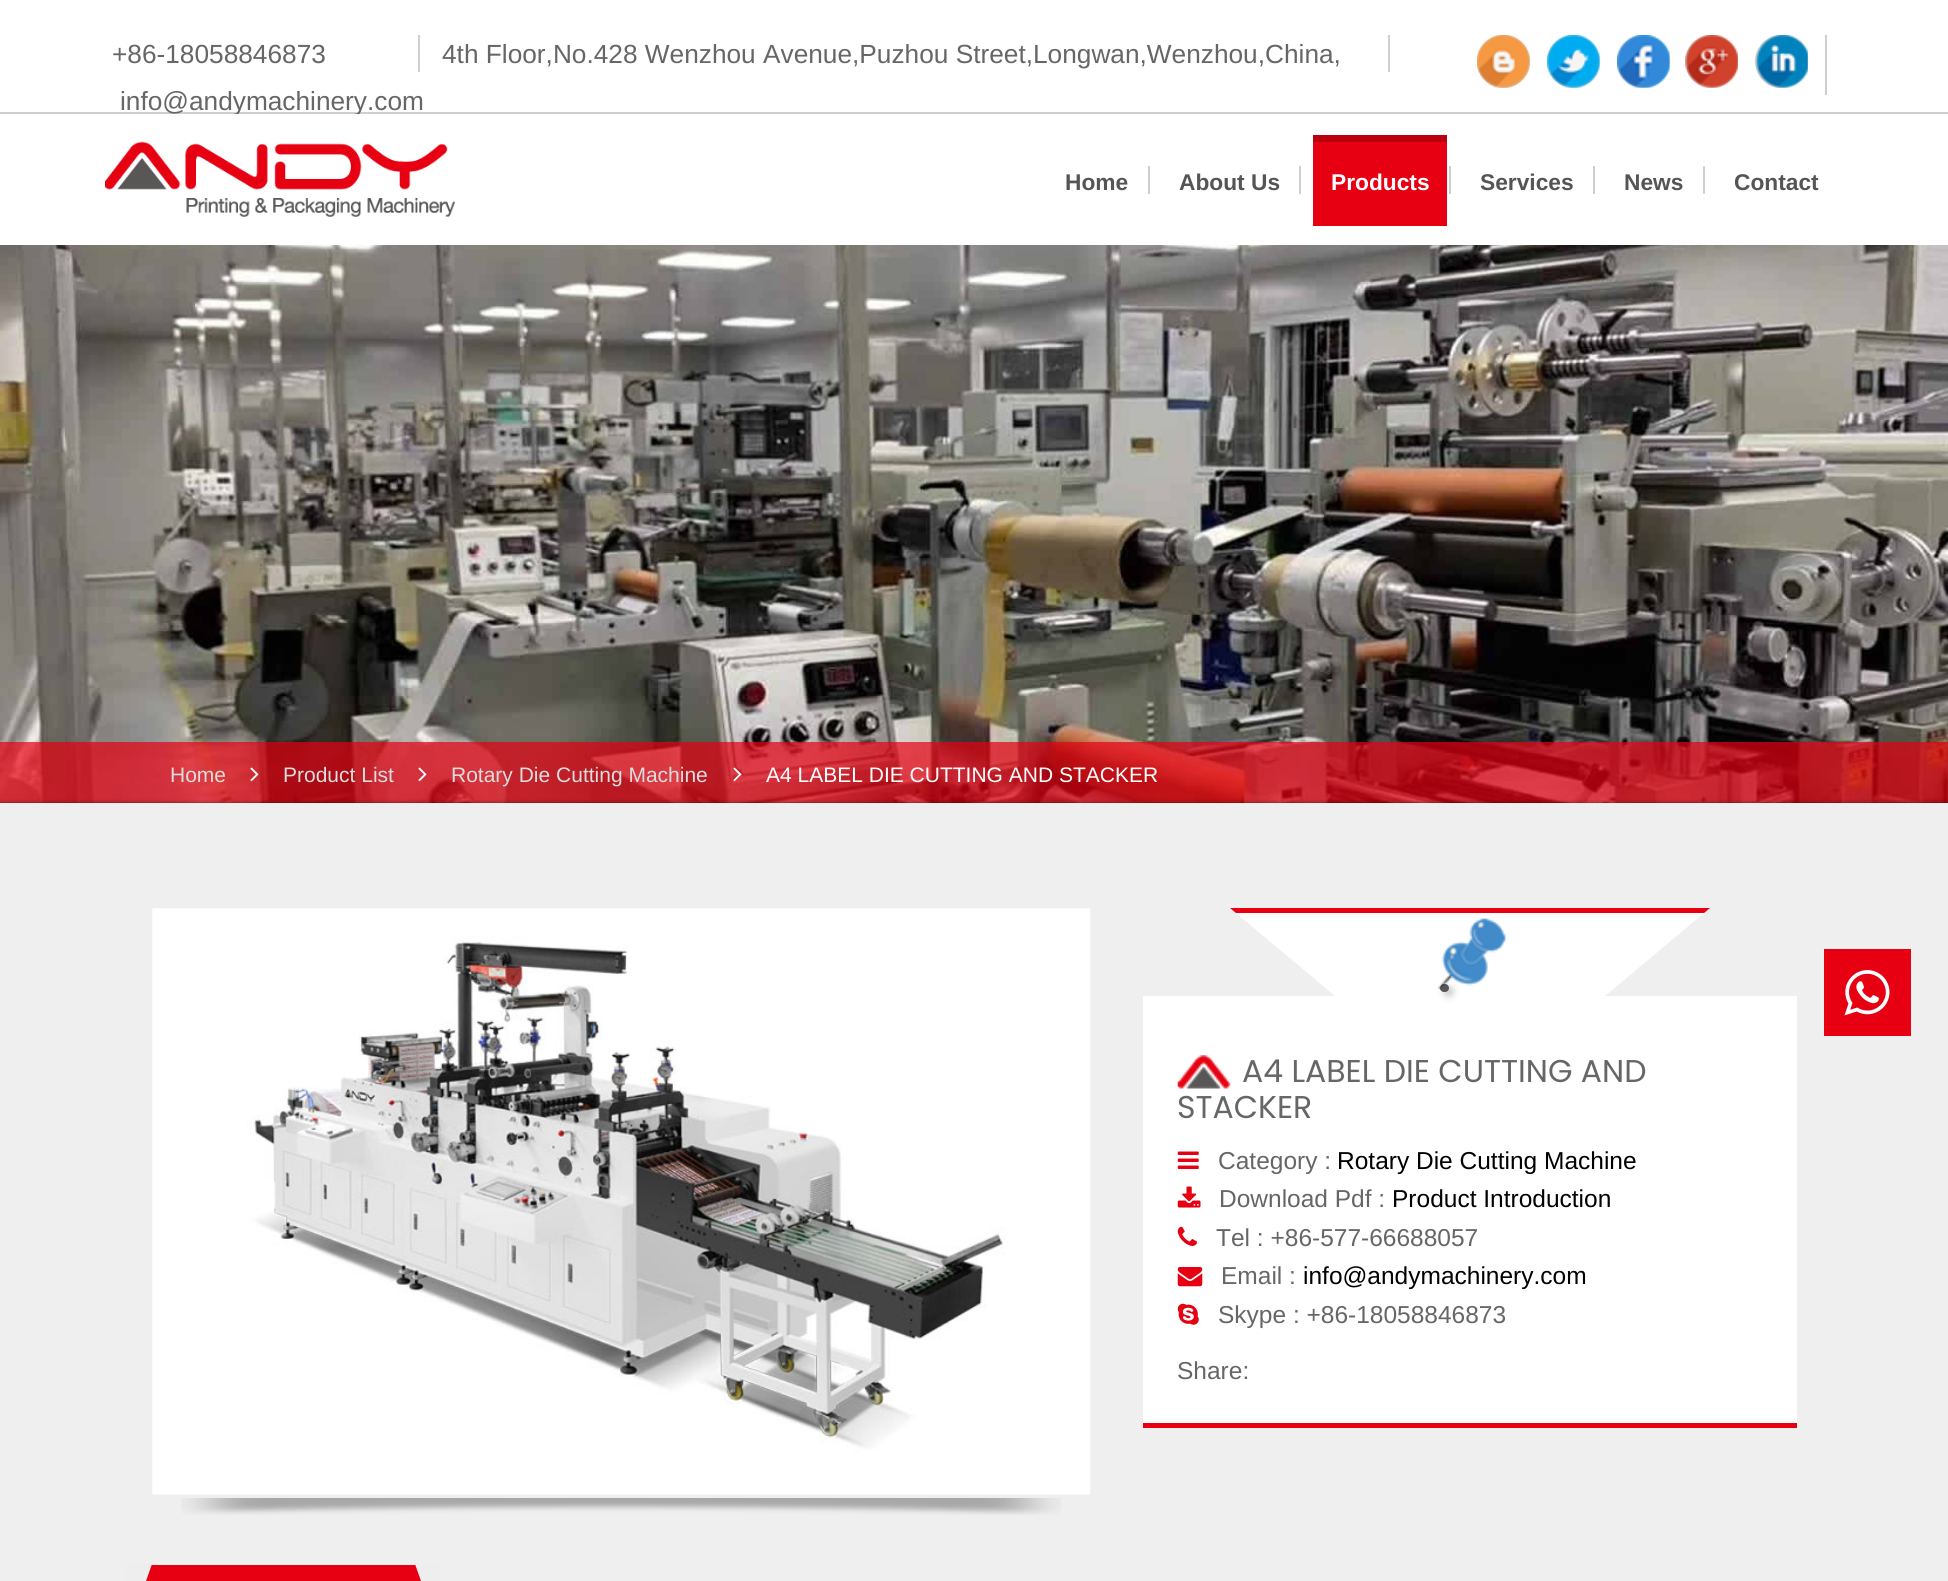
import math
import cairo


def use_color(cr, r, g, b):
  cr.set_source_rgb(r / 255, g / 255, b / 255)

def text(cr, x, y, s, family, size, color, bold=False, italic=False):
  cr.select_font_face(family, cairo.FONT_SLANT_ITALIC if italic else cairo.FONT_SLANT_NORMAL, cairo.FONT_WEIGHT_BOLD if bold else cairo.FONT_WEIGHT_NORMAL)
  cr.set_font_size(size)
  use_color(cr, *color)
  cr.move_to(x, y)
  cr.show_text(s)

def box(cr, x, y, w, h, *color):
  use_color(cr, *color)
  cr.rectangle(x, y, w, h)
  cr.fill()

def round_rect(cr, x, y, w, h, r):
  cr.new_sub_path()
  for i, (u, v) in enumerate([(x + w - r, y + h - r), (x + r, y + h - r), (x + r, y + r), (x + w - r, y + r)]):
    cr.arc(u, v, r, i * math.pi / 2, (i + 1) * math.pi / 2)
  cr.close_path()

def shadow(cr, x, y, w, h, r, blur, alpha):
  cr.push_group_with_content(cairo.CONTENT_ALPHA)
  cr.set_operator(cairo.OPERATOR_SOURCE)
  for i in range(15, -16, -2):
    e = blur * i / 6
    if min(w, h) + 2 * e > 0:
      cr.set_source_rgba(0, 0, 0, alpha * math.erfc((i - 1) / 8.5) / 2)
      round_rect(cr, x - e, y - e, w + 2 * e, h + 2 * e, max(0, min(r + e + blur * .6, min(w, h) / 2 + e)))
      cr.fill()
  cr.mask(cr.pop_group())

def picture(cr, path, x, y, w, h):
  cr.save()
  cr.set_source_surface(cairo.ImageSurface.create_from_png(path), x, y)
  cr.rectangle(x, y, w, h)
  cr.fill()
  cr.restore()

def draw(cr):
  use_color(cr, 255, 255, 255)
  cr.paint()
  box(cr, 0, 112, 1948, 2, 207, 207, 207)
  box(cr, 418, 35, 2, 37, 207, 207, 207)
  box(cr, 1388, 35, 2, 37, 207, 207, 207)
  box(cr, 1825, 35, 2, 60, 207, 207, 207)
  use_color(cr, 205, 204, 203)
  cr.arc(1503.5, 61.5, 26.5, 0, 2 * math.pi)
  cr.fill()
  picture(cr, "img_01.png", 1477, 35, 53, 53)
  cr.arc(1573.5, 61.5, 26.5, 0, 2 * math.pi)
  cr.fill()
  picture(cr, "img_02.png", 1547, 35, 53, 53)
  cr.arc(1643.5, 61.5, 26.5, 0, 2 * math.pi)
  cr.fill()
  picture(cr, "img_03.png", 1617, 35, 53, 53)
  cr.arc(1711.5, 61.5, 26.5, 0, 2 * math.pi)
  cr.fill()
  picture(cr, "img_04.png", 1685, 35, 53, 53)
  cr.arc(1781.5, 61.5, 26.5, 0, 2 * math.pi)
  cr.fill()
  picture(cr, "img_05.png", 1755, 35, 53, 53)
  picture(cr, "img_06.png", 105, 141, 350, 76)
  box(cr, 1148, 166, 2, 28, 206, 206, 206)
  box(cr, 1299, 166, 2, 28, 206, 206, 206)
  box(cr, 1313, 142, 134, 84, 230, 0, 18)
  box(cr, 1313, 135, 134, 7, 184, 0, 14)
  box(cr, 1449, 166, 2, 28, 206, 206, 206)
  box(cr, 1593, 166, 2, 28, 206, 206, 206)
  box(cr, 1703, 166, 2, 28, 206, 206, 206)
  picture(cr, "img_07.png", 0, 245, 1948, 558)
  cr.set_source_rgba(0.902, 0, 0.071, 0.7)
  cr.rectangle(0, 742, 1948, 61)
  cr.fill()
  picture(cr, "img_08.png", 250, 767, 9, 15)
  picture(cr, "img_09.png", 418, 767, 9, 15)
  picture(cr, "img_10.png", 733, 767, 9, 15)
  use_color(cr, 0, 0, 0)
  shadow(cr, 0, 803, 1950, 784, 0, 2, 0.5)
  box(cr, 0, 803, 1948, 778, 239, 239, 239)
  box(cr, 1824, 949, 87, 87, 230, 0, 18)
  picture(cr, "img_11.png", 1844, 970, 46, 46)
  picture(cr, "img_12.png", 152, 908, 939, 587)
  picture(cr, "img_13.png", 181, 1498, 880, 17)
  box(cr, 1143, 913, 654, 510, 255, 255, 255)
  box(cr, 1230, 908, 480, 5, 230, 0, 18)
  use_color(cr, 239, 239, 239)
  cr.new_path()
  cr.move_to(1335, 996)
  cr.line_to(1143, 996)
  cr.line_to(1230, 908)
  cr.close_path()
  cr.fill()
  box(cr, 1143, 913, 82, 83, 239, 239, 239)
  use_color(cr, 204, 204, 204)
  shadow(cr, 1444, 987, 9, 9, 4.5, 3.5, 1)
  use_color(cr, 89, 86, 86)
  round_rect(cr, 1440, 984, 9, 8, 4)
  cr.fill()
  picture(cr, "img_14.png", 1438, 918, 68, 72)
  box(cr, 1710, 913, 87, 83, 239, 239, 239)
  cr.new_path()
  cr.move_to(1797, 996)
  cr.line_to(1605, 996)
  cr.line_to(1710, 908)
  cr.close_path()
  cr.fill()
  box(cr, 1143, 1423, 654, 5, 230, 0, 18)
  picture(cr, "img_15.png", 1177, 1055, 54, 34)
  picture(cr, "img_16.png", 1177, 1151, 22, 18)
  picture(cr, "img_17.png", 1177, 1186, 24, 22)
  picture(cr, "img_18.png", 1177, 1226, 20, 20)
  picture(cr, "img_19.png", 1177, 1267, 26, 20)
  picture(cr, "img_20.png", 1177, 1303, 22, 22)
  box(cr, 146, 1565, 275, 16, 230, 0, 18)
  use_color(cr, 238, 238, 238)
  cr.new_path()
  cr.move_to(126, 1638)
  cr.line_to(126, 1564)
  cr.line_to(152, 1564)
  cr.close_path()
  cr.fill()
  cr.new_path()
  cr.move_to(441, 1564)
  cr.line_to(441, 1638)
  cr.line_to(415, 1564)
  cr.close_path()
  cr.fill()
  text(cr, 112, 63, "+86-18058846873", "Liberation Sans", 26.25, (102, 102, 102))
  text(cr, 442, 63, "4th Floor,No.428 Wenzhou Avenue,Puzhou Street,Longwan,Wenzhou,China,", "Liberation Sans", 26.25, (102, 102, 102))
  text(cr, 120, 110, "info@andymachinery.com", "Liberation Sans", 26.25, (102, 102, 102))
  box(cr, 233, 114, 126, 2, 255, 255, 255)
  text(cr, 1065, 190, "Home", "Liberation Sans", 22.75, (85, 85, 85), bold=True)
  text(cr, 1179, 190, "About Us", "Liberation Sans", 22.75, (85, 85, 85), bold=True)
  text(cr, 1331, 190, "Products", "Liberation Sans", 22.75, (255, 255, 255), bold=True)
  text(cr, 1480, 190, "Services", "Liberation Sans", 22.75, (85, 85, 85), bold=True)
  text(cr, 1624, 190, "News", "Liberation Sans", 22.75, (85, 85, 85), bold=True)
  text(cr, 1734, 190, "Contact", "Liberation Sans", 22.75, (85, 85, 85), bold=True)
  text(cr, 170, 782, "Home", "Liberation Sans", 21, (221, 221, 221))
  text(cr, 283, 782, "Product List", "Liberation Sans", 21, (221, 221, 221))
  text(cr, 451, 782, "Rotary Die Cutting Machine", "Liberation Sans", 21, (221, 221, 221))
  text(cr, 766, 782, "A4 LABEL DIE CUTTING AND STACKER", "Liberation Sans", 21, (255, 255, 255))
  text(cr, 1242, 1082, "A4 LABEL DIE CUTTING AND", "Poppins", 31.5, (102, 102, 102))
  text(cr, 1177, 1118, "STACKER", "Poppins", 31.5, (102, 102, 102))
  text(cr, 1218, 1169, "Category :", "Liberation Sans", 24.5, (102, 102, 102))
  text(cr, 1337, 1169, "Rotary Die Cutting Machine", "Liberation Sans", 24.5, (0, 0, 0))
  text(cr, 1219, 1207, "Download Pdf :", "Liberation Sans", 24.5, (102, 102, 102))
  text(cr, 1392, 1207, "Product Introduction", "Liberation Sans", 24.5, (0, 0, 0))
  text(cr, 1216, 1246, "Tel : +86-577-66688057", "Liberation Sans", 24.5, (102, 102, 102))
  text(cr, 1221, 1284, "Email :", "Liberation Sans", 24.5, (102, 102, 102))
  text(cr, 1303, 1284, "info@andymachinery.com", "Liberation Sans", 24.5, (0, 0, 0))
  text(cr, 1218, 1323, "Skype : +86-18058846873", "Liberation Sans", 24.5, (102, 102, 102))
  text(cr, 1177, 1379, "Share:", "Liberation Sans", 24.5, (102, 102, 102))


surface = cairo.ImageSurface(cairo.FORMAT_RGB24, 1948, 1581)
cr = cairo.Context(surface)
options = cairo.FontOptions()
options.set_hint_metrics(cairo.HINT_METRICS_OFF)
options.set_hint_style(cairo.HINT_STYLE_NONE)
cr.set_font_options(options)
cr.set_miter_limit(4)
draw(cr)
surface.write_to_png("out.png")
